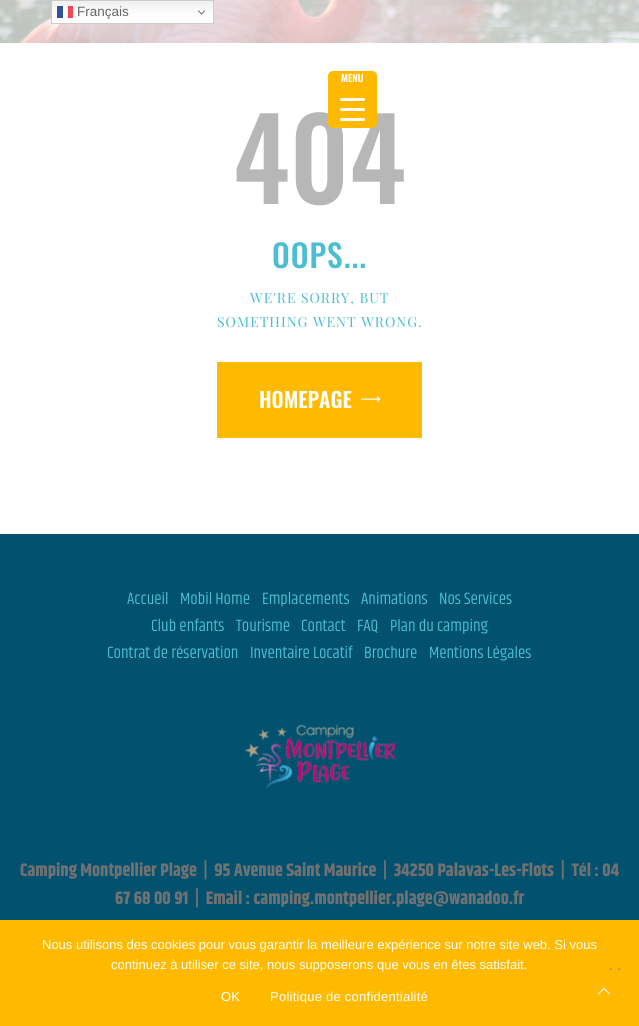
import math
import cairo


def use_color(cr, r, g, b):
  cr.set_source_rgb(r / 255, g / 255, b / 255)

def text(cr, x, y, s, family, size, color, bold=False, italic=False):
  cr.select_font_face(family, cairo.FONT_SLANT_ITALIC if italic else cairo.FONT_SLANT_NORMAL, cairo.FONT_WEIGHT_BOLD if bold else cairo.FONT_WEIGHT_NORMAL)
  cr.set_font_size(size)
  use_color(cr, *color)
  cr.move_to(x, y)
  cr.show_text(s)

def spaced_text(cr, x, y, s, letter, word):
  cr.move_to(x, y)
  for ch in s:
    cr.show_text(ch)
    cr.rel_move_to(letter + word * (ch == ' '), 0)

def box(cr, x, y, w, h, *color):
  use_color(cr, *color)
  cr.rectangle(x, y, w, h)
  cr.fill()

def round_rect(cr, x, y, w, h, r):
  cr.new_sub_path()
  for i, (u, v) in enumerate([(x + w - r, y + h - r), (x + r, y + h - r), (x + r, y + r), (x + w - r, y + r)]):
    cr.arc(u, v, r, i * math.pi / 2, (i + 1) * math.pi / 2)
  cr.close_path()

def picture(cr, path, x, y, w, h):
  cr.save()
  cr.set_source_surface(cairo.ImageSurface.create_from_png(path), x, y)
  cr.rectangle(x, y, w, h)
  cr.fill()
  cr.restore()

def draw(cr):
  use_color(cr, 255, 255, 255)
  cr.paint()
  picture(cr, "img_02.png", 0, 0, 639, 43)
  gradient = cairo.LinearGradient(133, 0, 133, 24)
  gradient.add_color_stop_rgba(0, 0.937, 0.937, 0.937, 1)
  gradient.add_color_stop_rgba(0.7, 1, 1, 1, 1)
  cr.set_source(gradient)
  cr.rectangle(52, 1, 161, 22)
  cr.fill()
  cr.rectangle(51.5, 0.5, 162, 23)
  use_color(cr, 204, 204, 204)
  cr.set_line_width(1)
  cr.stroke()
  box(cr, 57, 6, 6, 12, 51, 81, 152)
  cr.set_source_rgba(1, 1, 1, 0.8)
  cr.rectangle(63, 6, 5, 12)
  cr.fill()
  box(cr, 68, 6, 5, 12, 245, 70, 89)
  picture(cr, "img_01.png", 198, 10, 7, 5)
  box(cr, 217, 362, 205, 76, 255, 186, 0)
  picture(cr, "img_03.png", 361, 396, 20, 6)
  box(cr, 0, 534, 639, 386, 1, 81, 111)
  picture(cr, "img_04.png", 245, 724, 150, 65)
  box(cr, 0, 920, 639, 106, 255, 186, 0)
  use_color(cr, 192, 157, 64)
  cr.new_path()
  cr.move_to(619.5, 967.5)
  cr.line_to(621, 969)
  cr.line_to(610.5, 979.5)
  cr.line_to(609, 978)
  cr.close_path()
  cr.fill()
  cr.new_path()
  cr.move_to(609, 969)
  cr.line_to(610.5, 967.5)
  cr.line_to(621, 978)
  cr.line_to(619.5, 979.5)
  cr.close_path()
  cr.fill()
  box(cr, 609, 970, 12, 10, 255, 186, 0)
  picture(cr, "img_05.png", 598, 987, 12, 8)
  text(cr, 77, 16, "Français", "Liberation Sans", 13.5, (102, 102, 102))
  text(cr, 233, 204, "404", "Oswald Medium", 112, (183, 183, 183))
  use_color(cr, 255, 186, 0)
  round_rect(cr, 328, 71, 49, 57, 5)
  cr.fill()
  use_color(cr, 255, 255, 255)
  round_rect(cr, 340, 98, 25, 3, 1.5)
  cr.fill()
  round_rect(cr, 340, 118, 25, 3, 1.5)
  cr.fill()
  round_rect(cr, 340, 108, 25, 3, 1.5)
  cr.fill()
  text(cr, 341, 82, "MENU", "Oswald SemiBold", 10, (255, 255, 255))
  cr.select_font_face("Oswald Medium")
  cr.set_font_size(31.5)
  use_color(cr, 75, 190, 209)
  spaced_text(cr, 272, 268, "OOPS...", 1, 0)
  cr.select_font_face("Playfair Display")
  cr.set_font_size(14)
  spaced_text(cr, 250, 303, "WE'RE SORRY, BUT", 1, 0)
  spaced_text(cr, 217, 327, "SOMETHING WENT WRONG.", 1, 0)
  text(cr, 259, 408, "HOMEPAGE", "Oswald SemiBold", 21, (255, 255, 255))
  text(cr, 127, 604, "Accueil", "Khand", 16.75, (75, 190, 209))
  text(cr, 180, 604, "Mobil Home", "Khand", 16.75, (75, 190, 209))
  text(cr, 262, 604, "Emplacements", "Khand", 16.75, (75, 190, 209))
  text(cr, 361, 604, "Animations", "Khand", 16.75, (75, 190, 209))
  text(cr, 439, 604, "Nos Services", "Khand", 16.75, (75, 190, 209))
  text(cr, 151, 631, "Club enfants", "Khand", 16.75, (75, 190, 209))
  text(cr, 236, 631, "Tourisme", "Khand", 16.75, (75, 190, 209))
  text(cr, 301, 631, "Contact", "Khand", 16.75, (75, 190, 209))
  text(cr, 357, 631, "FAQ", "Khand", 16.75, (75, 190, 209))
  text(cr, 390, 631, "Plan du camping", "Khand", 16.75, (75, 190, 209))
  text(cr, 107, 658, "Contrat de réservation", "Khand", 16.75, (75, 190, 209))
  text(cr, 250, 658, "Inventaire Locatif", "Khand", 16.75, (75, 190, 209))
  text(cr, 364, 658, "Brochure", "Khand", 16.75, (75, 190, 209))
  text(cr, 429, 658, "Mentions Légales", "Khand", 16.75, (75, 190, 209))
  text(cr, 20, 876, "Camping Montpellier Plage  |  95 Avenue Saint Maurice  |  34250 Palavas-Les-Flots  |  Tél : 04", "Khand", 18, (113, 113, 113), bold=True)
  text(cr, 115, 904, "67 68 00 91  |  Email : camping.montpellier.plage@wanadoo.fr", "Khand", 18, (113, 113, 113), bold=True)
  text(cr, 42, 949, "Nous utilisons des cookies pour vous garantir la meilleure expérience sur notre site web. Si vous", "Liberation Sans", 13, (255, 255, 255))
  text(cr, 111, 969, "continuez à utiliser ce site, nous supposerons que vous en êtes satisfait.", "Liberation Sans", 13, (255, 255, 255))
  spaced_text(cr, 221, 1001, "OK", 0.25, 0)
  spaced_text(cr, 270, 1001, "Politique de confidentialité", 0.25, 0)


surface = cairo.ImageSurface(cairo.FORMAT_RGB24, 639, 1026)
cr = cairo.Context(surface)
options = cairo.FontOptions()
options.set_hint_metrics(cairo.HINT_METRICS_OFF)
options.set_hint_style(cairo.HINT_STYLE_NONE)
cr.set_font_options(options)
cr.set_miter_limit(4)
draw(cr)
surface.write_to_png("out.png")
